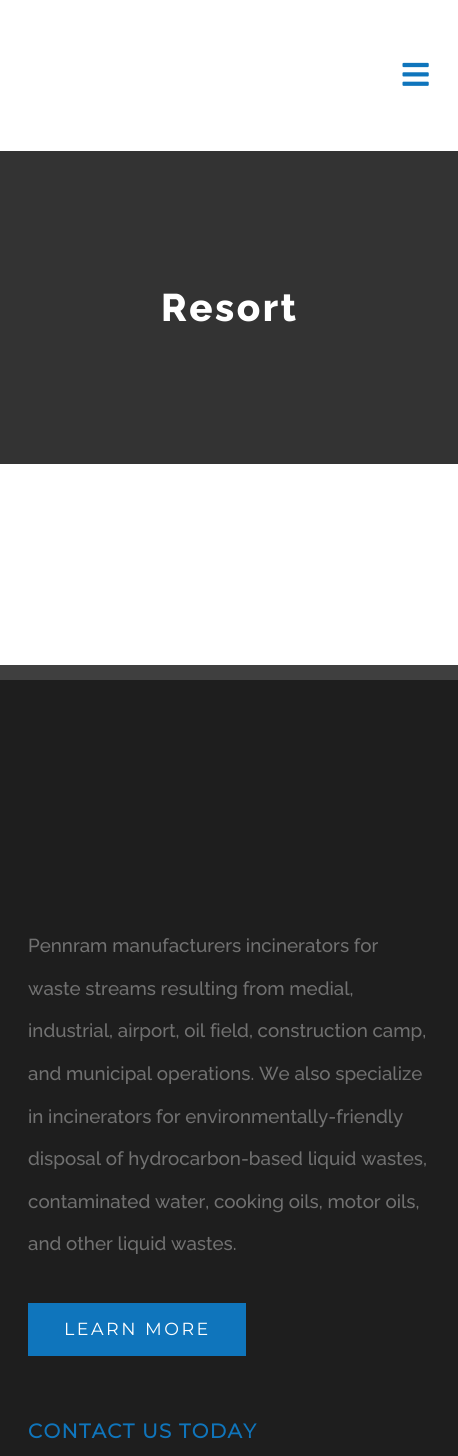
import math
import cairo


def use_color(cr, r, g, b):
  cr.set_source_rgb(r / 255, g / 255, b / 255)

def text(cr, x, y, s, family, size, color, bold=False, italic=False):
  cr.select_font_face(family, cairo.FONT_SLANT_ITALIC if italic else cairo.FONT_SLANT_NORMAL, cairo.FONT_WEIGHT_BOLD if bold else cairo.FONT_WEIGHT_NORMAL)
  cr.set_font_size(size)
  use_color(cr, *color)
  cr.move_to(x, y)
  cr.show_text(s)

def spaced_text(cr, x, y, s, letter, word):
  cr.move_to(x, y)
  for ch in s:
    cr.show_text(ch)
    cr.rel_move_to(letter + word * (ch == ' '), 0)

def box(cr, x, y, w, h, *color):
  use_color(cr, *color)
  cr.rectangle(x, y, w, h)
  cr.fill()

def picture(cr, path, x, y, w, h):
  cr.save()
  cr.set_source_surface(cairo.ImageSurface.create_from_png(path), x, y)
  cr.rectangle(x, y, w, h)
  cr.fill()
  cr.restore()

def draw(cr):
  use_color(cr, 255, 255, 255)
  cr.paint()
  picture(cr, "img_01.png", 402, 62, 27, 24)
  box(cr, 0, 151, 458, 313, 51, 51, 51)
  box(cr, 0, 680, 458, 776, 30, 30, 30)
  box(cr, 0, 665, 458, 15, 63, 63, 63)
  box(cr, 28, 1303, 218, 53, 15, 117, 188)
  cr.select_font_face("Raleway ExtraBold")
  cr.set_font_size(38.5)
  use_color(cr, 255, 255, 255)
  spaced_text(cr, 161, 321, "Resort", 2.5, 0)
  text(cr, 28, 952, "Pennram manufacturers incinerators for", "Raleway Medium", 18.75, (113, 113, 113))
  text(cr, 28, 995, "waste streams resulting from medial,", "Raleway Medium", 18.75, (113, 113, 113))
  text(cr, 28, 1037, "industrial, airport, oil field, construction camp,", "Raleway Medium", 18.75, (113, 113, 113))
  text(cr, 28, 1080, "and municipal operations. We also specialize", "Raleway Medium", 18.75, (113, 113, 113))
  text(cr, 28, 1123, "in incinerators for environmentally-friendly", "Raleway Medium", 18.75, (113, 113, 113))
  text(cr, 28, 1165, "disposal of hydrocarbon-based liquid wastes,", "Raleway Medium", 18.75, (113, 113, 113))
  text(cr, 28, 1208, "contaminated water, cooking oils, motor oils,", "Raleway Medium", 18.75, (113, 113, 113))
  text(cr, 28, 1250, "and other liquid wastes.", "Raleway Medium", 18.75, (113, 113, 113))
  cr.select_font_face("Montserrat Thin")
  cr.set_font_size(17.5)
  use_color(cr, 255, 255, 255)
  spaced_text(cr, 64, 1335, "LEARN MORE", 2.5, 0)
  cr.select_font_face("Montserrat", cairo.FONT_SLANT_NORMAL, cairo.FONT_WEIGHT_BOLD)
  cr.set_font_size(20)
  use_color(cr, 15, 117, 188)
  spaced_text(cr, 28, 1438, "CONTACT US TODAY", 1.25, 0)


surface = cairo.ImageSurface(cairo.FORMAT_RGB24, 458, 1456)
cr = cairo.Context(surface)
options = cairo.FontOptions()
options.set_hint_metrics(cairo.HINT_METRICS_OFF)
options.set_hint_style(cairo.HINT_STYLE_NONE)
cr.set_font_options(options)
cr.set_miter_limit(4)
draw(cr)
surface.write_to_png("out.png")
